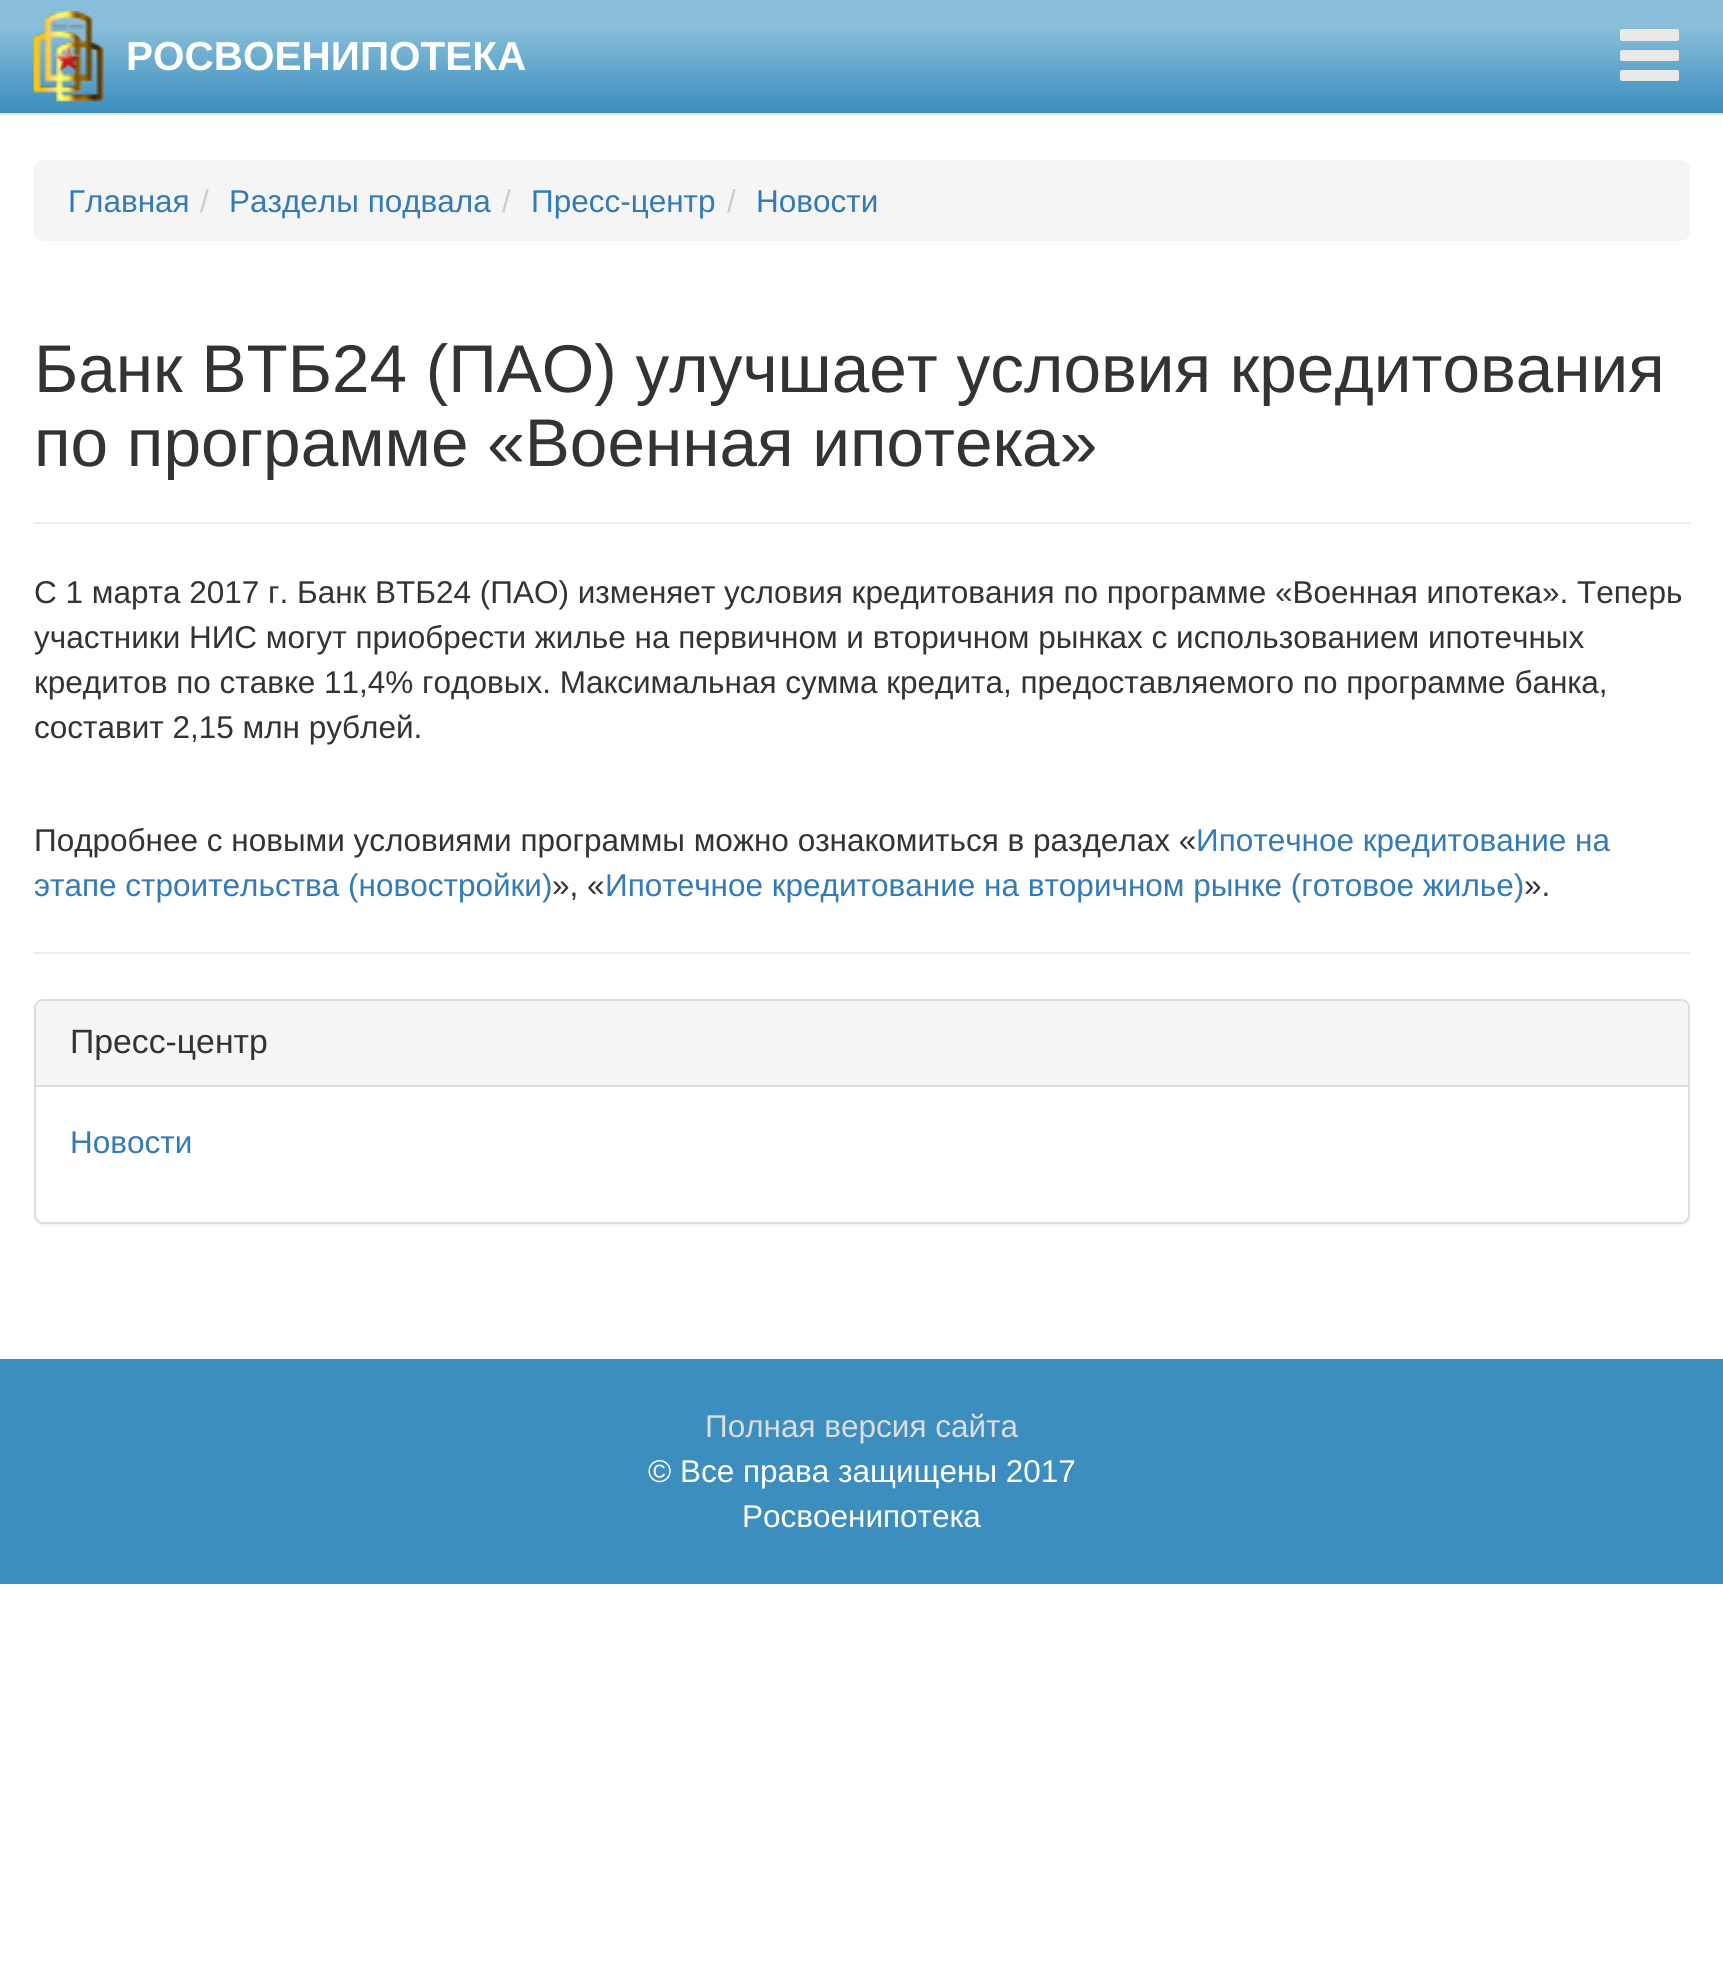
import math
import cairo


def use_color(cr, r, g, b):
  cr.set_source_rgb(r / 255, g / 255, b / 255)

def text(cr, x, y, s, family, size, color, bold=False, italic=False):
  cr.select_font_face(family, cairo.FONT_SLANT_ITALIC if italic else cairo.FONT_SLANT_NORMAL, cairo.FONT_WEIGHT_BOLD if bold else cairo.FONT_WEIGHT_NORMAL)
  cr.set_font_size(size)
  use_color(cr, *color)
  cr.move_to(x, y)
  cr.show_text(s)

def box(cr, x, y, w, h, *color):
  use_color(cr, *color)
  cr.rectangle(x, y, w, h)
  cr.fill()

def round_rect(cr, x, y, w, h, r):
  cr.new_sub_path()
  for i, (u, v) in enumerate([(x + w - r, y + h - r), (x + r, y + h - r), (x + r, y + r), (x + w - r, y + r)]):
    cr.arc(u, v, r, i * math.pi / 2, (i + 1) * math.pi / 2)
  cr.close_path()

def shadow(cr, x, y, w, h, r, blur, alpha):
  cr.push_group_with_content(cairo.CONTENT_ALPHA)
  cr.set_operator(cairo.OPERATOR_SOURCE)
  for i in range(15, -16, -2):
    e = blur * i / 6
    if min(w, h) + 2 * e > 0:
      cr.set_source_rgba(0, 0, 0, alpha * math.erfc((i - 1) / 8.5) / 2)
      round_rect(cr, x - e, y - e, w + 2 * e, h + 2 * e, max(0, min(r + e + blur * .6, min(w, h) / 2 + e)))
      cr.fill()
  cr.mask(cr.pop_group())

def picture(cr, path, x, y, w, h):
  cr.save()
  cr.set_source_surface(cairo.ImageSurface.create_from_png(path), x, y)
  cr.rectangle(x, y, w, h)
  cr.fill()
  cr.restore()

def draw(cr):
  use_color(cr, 255, 255, 255)
  cr.paint()
  gradient = cairo.LinearGradient(862, 0, 862, 113)
  gradient.add_color_stop_rgba(0.24, 0.533, 0.745, 0.851, 1)
  gradient.add_color_stop_rgba(1, 0.231, 0.557, 0.745, 1)
  cr.set_source(gradient)
  cr.rectangle(0, 0, 1723, 113)
  cr.fill()
  box(cr, 0, 113, 1723, 2, 231, 231, 231)
  picture(cr, "img_01.png", 33, 11, 71, 91)
  use_color(cr, 233, 233, 233)
  round_rect(cr, 1620, 29, 59, 12, 2)
  cr.fill()
  round_rect(cr, 1620, 50, 59, 11, 2)
  cr.fill()
  round_rect(cr, 1620, 70, 59, 11, 2)
  cr.fill()
  use_color(cr, 245, 245, 245)
  round_rect(cr, 34, 160, 1656, 81, 9)
  cr.fill()
  box(cr, 34, 522, 1656, 2, 238, 238, 238)
  box(cr, 34, 952, 1656, 2, 238, 238, 238)
  use_color(cr, 0, 0, 0)
  shadow(cr, 34, 1001, 1656, 225, 9, 1, 0.05)
  use_color(cr, 255, 255, 255)
  round_rect(cr, 35, 1000, 1654, 223, 8)
  cr.fill_preserve()
  use_color(cr, 221, 221, 221)
  cr.stroke()
  use_color(cr, 245, 245, 245)
  cr.new_path()
  cr.move_to(43, 1001)
  cr.line_to(1681, 1001)
  cr.curve_to(1685, 1001, 1688, 1004, 1688, 1008)
  cr.line_to(1688, 1085)
  cr.line_to(36, 1085)
  cr.line_to(36, 1008)
  cr.curve_to(36, 1004, 39, 1001, 43, 1001)
  cr.close_path()
  cr.fill()
  box(cr, 36, 1085, 1652, 2, 221, 221, 221)
  box(cr, 0, 1359, 1723, 225, 59, 142, 190)
  text(cr, 126, 70, "РОСВОЕНИПОТЕКА", "Liberation Sans", 40.5, (255, 255, 255), bold=True)
  text(cr, 68, 212, "Главная", "Liberation Sans", 31.5, (51, 122, 183))
  text(cr, 200, 212, "/", "Liberation Sans", 31.5, (204, 204, 204))
  text(cr, 229, 212, "Разделы подвала", "Liberation Sans", 31.5, (51, 122, 183))
  text(cr, 502, 212, "/", "Liberation Sans", 31.5, (204, 204, 204))
  text(cr, 531, 212, "Пресс-центр", "Liberation Sans", 31.5, (51, 122, 183))
  text(cr, 727, 212, "/", "Liberation Sans", 31.5, (204, 204, 204))
  text(cr, 756, 212, "Новости", "Liberation Sans", 31.5, (51, 122, 183))
  text(cr, 34, 392, "Банк ВТБ24 (ПАО) улучшает условия кредитования", "Liberation Sans", 67.5, (51, 51, 51))
  text(cr, 34, 466, "по программе «Военная ипотека»", "Liberation Sans", 67.5, (51, 51, 51))
  text(cr, 34, 603, "С 1 марта 2017 г. Банк ВТБ24 (ПАО) изменяет условия кредитования по программе «Военная ипотека». Теперь", "Liberation Sans", 31.5, (51, 51, 51))
  text(cr, 34, 648, "участники НИС могут приобрести жилье на первичном и вторичном рынках с использованием ипотечных", "Liberation Sans", 31.5, (51, 51, 51))
  text(cr, 34, 693, "кредитов по ставке 11,4% годовых. Максимальная сумма кредита, предоставляемого по программе банка,", "Liberation Sans", 31.5, (51, 51, 51))
  text(cr, 34, 738, "составит 2,15 млн рублей.", "Liberation Sans", 31.5, (51, 51, 51))
  text(cr, 34, 851, "Подробнее с новыми условиями программы можно ознакомиться в разделах «", "Liberation Sans", 31.5, (51, 51, 51))
  text(cr, 1196, 851, "Ипотечное кредитование на", "Liberation Sans", 31.5, (51, 122, 183))
  text(cr, 34, 896, "этапе строительства (новостройки)", "Liberation Sans", 31.5, (51, 122, 183))
  text(cr, 552, 896, "», «", "Liberation Sans", 31.5, (51, 51, 51))
  text(cr, 605, 896, "Ипотечное кредитование на вторичном рынке (готовое жилье)", "Liberation Sans", 31.5, (51, 122, 183))
  text(cr, 1524, 896, "».", "Liberation Sans", 31.5, (51, 51, 51))
  text(cr, 70, 1053, "Пресс-центр", "Liberation Sans", 33.75, (51, 51, 51))
  text(cr, 70, 1153, "Новости", "Liberation Sans", 31.5, (51, 122, 183))
  text(cr, 705, 1437, "Полная версия сайта", "Liberation Sans", 31.5, (221, 221, 221))
  text(cr, 648, 1482, "© Все права защищены 2017", "Liberation Sans", 31.5, (255, 255, 255))
  text(cr, 742, 1527, "Росвоенипотека", "Liberation Sans", 31.5, (255, 255, 255))


surface = cairo.ImageSurface(cairo.FORMAT_RGB24, 1723, 1967)
cr = cairo.Context(surface)
options = cairo.FontOptions()
options.set_hint_metrics(cairo.HINT_METRICS_OFF)
options.set_hint_style(cairo.HINT_STYLE_NONE)
cr.set_font_options(options)
cr.set_miter_limit(4)
draw(cr)
surface.write_to_png("out.png")
